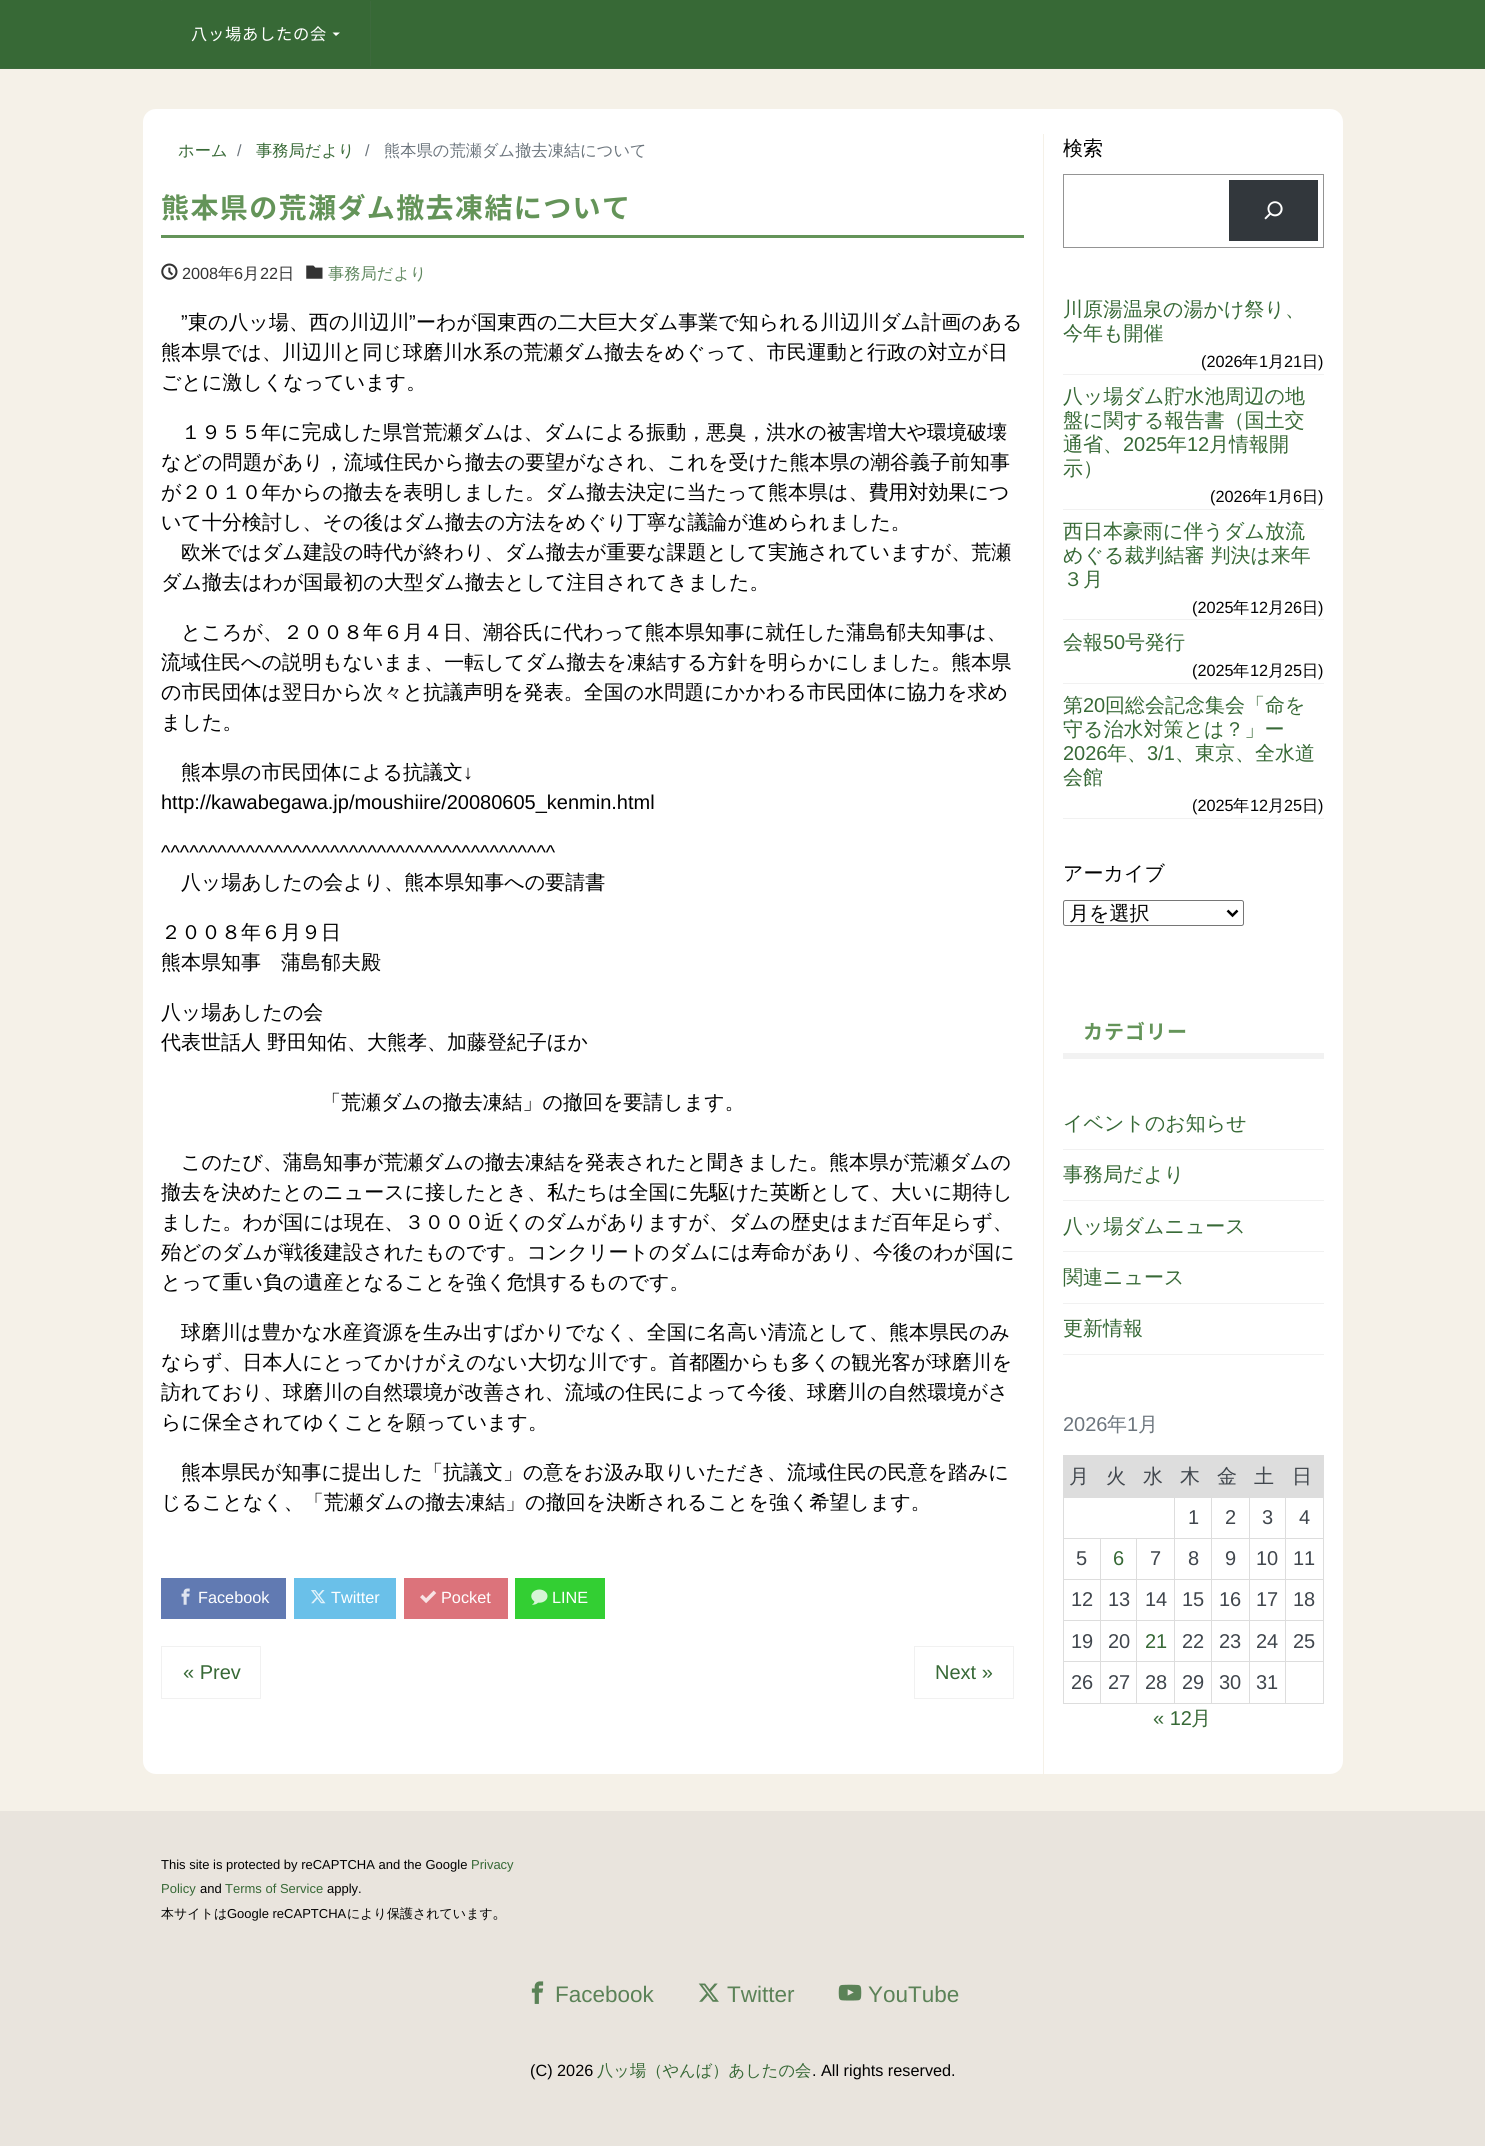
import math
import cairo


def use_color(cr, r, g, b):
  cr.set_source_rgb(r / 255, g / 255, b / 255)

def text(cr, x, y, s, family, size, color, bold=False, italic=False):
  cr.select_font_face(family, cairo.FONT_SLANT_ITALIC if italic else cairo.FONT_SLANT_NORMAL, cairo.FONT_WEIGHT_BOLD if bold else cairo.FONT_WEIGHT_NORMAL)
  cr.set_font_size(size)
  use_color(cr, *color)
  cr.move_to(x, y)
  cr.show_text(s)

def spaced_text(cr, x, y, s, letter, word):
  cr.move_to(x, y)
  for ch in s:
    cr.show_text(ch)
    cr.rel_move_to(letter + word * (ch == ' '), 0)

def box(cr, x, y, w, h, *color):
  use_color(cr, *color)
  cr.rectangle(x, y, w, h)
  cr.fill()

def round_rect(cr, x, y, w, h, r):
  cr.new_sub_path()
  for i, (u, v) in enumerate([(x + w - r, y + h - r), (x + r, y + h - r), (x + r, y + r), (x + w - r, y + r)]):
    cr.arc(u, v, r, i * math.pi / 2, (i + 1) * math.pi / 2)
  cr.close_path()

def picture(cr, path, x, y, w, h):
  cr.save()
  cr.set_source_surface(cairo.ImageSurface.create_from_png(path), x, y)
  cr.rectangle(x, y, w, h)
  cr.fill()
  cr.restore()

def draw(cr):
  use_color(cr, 245, 241, 232)
  cr.paint()
  box(cr, 0, 0, 1485, 68, 55, 105, 54)
  box(cr, 0, 68, 1485, 1, 61, 106, 61)
  cr.new_path()
  cr.move_to(161, 1)
  cr.line_to(161, -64)
  cr.line_to(162, -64)
  cr.line_to(162, 0)
  cr.close_path()
  cr.fill()
  box(cr, 370, 1, 1, 65, 61, 106, 61)
  use_color(cr, 255, 255, 255)
  cr.new_path()
  cr.move_to(332.5, 32.5)
  cr.line_to(340, 32.5)
  cr.line_to(336, 36)
  cr.close_path()
  cr.fill()
  round_rect(cr, 143, 109, 1200, 1665, 13)
  cr.fill()
  box(cr, 161, 235, 863, 3, 100, 148, 89)
  picture(cr, "img_01.png", 161, 263, 17, 17)
  picture(cr, "img_02.png", 306, 265, 17, 14)
  box(cr, 161, 1578, 125, 41, 97, 122, 178)
  picture(cr, "img_03.png", 181, 1588, 9, 17)
  box(cr, 294, 1578, 102, 41, 106, 192, 233)
  picture(cr, "img_04.png", 311, 1590, 15, 14)
  box(cr, 404, 1578, 104, 41, 220, 115, 123)
  picture(cr, "img_05.png", 420, 1590, 17, 14)
  box(cr, 515, 1578, 90, 41, 51, 207, 51)
  picture(cr, "img_06.png", 531, 1589, 17, 16)
  cr.rectangle(161.5, 1646.5, 99, 52)
  use_color(cr, 241, 241, 241)
  cr.set_line_width(1)
  cr.stroke()
  cr.rectangle(914.5, 1646.5, 99, 52)
  cr.stroke()
  box(cr, 1043, 134, 1, 1640, 245, 241, 232)
  cr.rectangle(1063.5, 174.5, 260, 73)
  use_color(cr, 148, 148, 148)
  cr.stroke()
  box(cr, 1229, 180, 89, 61, 50, 55, 60)
  picture(cr, "img_07.png", 1264, 201, 19, 19)
  box(cr, 1063, 374, 261, 1, 241, 241, 241)
  box(cr, 1063, 509, 261, 1, 241, 241, 241)
  box(cr, 1063, 619, 261, 1, 241, 241, 241)
  box(cr, 1063, 683, 261, 1, 241, 241, 241)
  box(cr, 1063, 818, 261, 1, 241, 241, 241)
  round_rect(cr, 1063.5, 900.5, 180, 25, 2)
  use_color(cr, 118, 118, 118)
  cr.stroke()
  cr.new_path()
  cr.move_to(1227.5, 910.5)
  cr.line_to(1232.5, 915.5)
  cr.line_to(1237.5, 910.5)
  use_color(cr, 0, 0, 0)
  cr.set_line_width(2.5)
  cr.stroke()
  box(cr, 1063, 1053, 261, 6, 242, 242, 242)
  box(cr, 1063, 1149, 261, 1, 241, 241, 241)
  box(cr, 1063, 1200, 261, 1, 241, 241, 241)
  box(cr, 1063, 1251, 261, 1, 241, 241, 241)
  box(cr, 1063, 1303, 261, 1, 241, 241, 241)
  box(cr, 1063, 1354, 261, 1, 241, 241, 241)
  box(cr, 1064, 1456, 260, 42, 221, 221, 221)
  box(cr, 1063, 1455, 261, 1, 221, 221, 221)
  box(cr, 1285, 1538, 39, 1, 221, 221, 221)
  box(cr, 1285, 1579, 39, 1, 221, 221, 221)
  box(cr, 1285, 1620, 39, 1, 221, 221, 221)
  box(cr, 1285, 1661, 39, 1, 221, 221, 221)
  box(cr, 1323, 1661, 1, 43, 221, 221, 221)
  box(cr, 1285, 1703, 39, 1, 221, 221, 221)
  box(cr, 1285, 1661, 1, 43, 221, 221, 221)
  box(cr, 1249, 1661, 37, 1, 221, 221, 221)
  box(cr, 1285, 1620, 1, 43, 221, 221, 221)
  box(cr, 1249, 1620, 37, 1, 221, 221, 221)
  box(cr, 1285, 1579, 1, 42, 221, 221, 221)
  box(cr, 1249, 1579, 37, 1, 221, 221, 221)
  box(cr, 1285, 1538, 1, 42, 221, 221, 221)
  box(cr, 1249, 1538, 37, 1, 221, 221, 221)
  box(cr, 1249, 1703, 37, 1, 221, 221, 221)
  box(cr, 1249, 1661, 1, 43, 221, 221, 221)
  box(cr, 1211, 1661, 39, 1, 221, 221, 221)
  box(cr, 1249, 1620, 1, 43, 221, 221, 221)
  box(cr, 1211, 1620, 39, 1, 221, 221, 221)
  box(cr, 1249, 1579, 1, 42, 221, 221, 221)
  box(cr, 1211, 1579, 39, 1, 221, 221, 221)
  box(cr, 1249, 1538, 1, 42, 221, 221, 221)
  box(cr, 1211, 1538, 39, 1, 221, 221, 221)
  box(cr, 1211, 1703, 39, 1, 221, 221, 221)
  box(cr, 1211, 1661, 1, 43, 221, 221, 221)
  box(cr, 1174, 1661, 39, 1, 221, 221, 221)
  box(cr, 1211, 1620, 1, 43, 221, 221, 221)
  box(cr, 1174, 1620, 39, 1, 221, 221, 221)
  box(cr, 1211, 1579, 1, 42, 221, 221, 221)
  box(cr, 1174, 1579, 39, 1, 221, 221, 221)
  box(cr, 1211, 1538, 1, 42, 221, 221, 221)
  box(cr, 1174, 1538, 39, 1, 221, 221, 221)
  box(cr, 1174, 1703, 39, 1, 221, 221, 221)
  box(cr, 1174, 1661, 1, 43, 221, 221, 221)
  box(cr, 1136, 1661, 39, 1, 221, 221, 221)
  box(cr, 1174, 1620, 1, 43, 221, 221, 221)
  box(cr, 1136, 1620, 39, 1, 221, 221, 221)
  box(cr, 1174, 1579, 1, 42, 221, 221, 221)
  box(cr, 1136, 1579, 39, 1, 221, 221, 221)
  box(cr, 1174, 1538, 1, 42, 221, 221, 221)
  box(cr, 1136, 1538, 39, 1, 221, 221, 221)
  box(cr, 1136, 1703, 39, 1, 221, 221, 221)
  box(cr, 1136, 1661, 1, 43, 221, 221, 221)
  box(cr, 1100, 1661, 38, 1, 221, 221, 221)
  box(cr, 1136, 1620, 1, 43, 221, 221, 221)
  box(cr, 1100, 1620, 38, 1, 221, 221, 221)
  box(cr, 1136, 1579, 1, 42, 221, 221, 221)
  box(cr, 1100, 1579, 38, 1, 221, 221, 221)
  box(cr, 1136, 1538, 1, 42, 221, 221, 221)
  box(cr, 1100, 1538, 38, 1, 221, 221, 221)
  box(cr, 1100, 1703, 38, 1, 221, 221, 221)
  box(cr, 1100, 1661, 1, 43, 221, 221, 221)
  box(cr, 1063, 1661, 38, 1, 221, 221, 221)
  box(cr, 1100, 1620, 1, 43, 221, 221, 221)
  box(cr, 1063, 1620, 38, 1, 221, 221, 221)
  box(cr, 1100, 1579, 1, 42, 221, 221, 221)
  box(cr, 1063, 1579, 38, 1, 221, 221, 221)
  box(cr, 1100, 1538, 1, 42, 221, 221, 221)
  box(cr, 1063, 1538, 38, 1, 221, 221, 221)
  box(cr, 1063, 1703, 38, 1, 221, 221, 221)
  box(cr, 1063, 1661, 1, 43, 221, 221, 221)
  box(cr, 1063, 1620, 1, 43, 221, 221, 221)
  box(cr, 1063, 1579, 1, 42, 221, 221, 221)
  box(cr, 1063, 1538, 1, 42, 221, 221, 221)
  box(cr, 1063, 1496, 1, 43, 221, 221, 221)
  box(cr, 1063, 1455, 1, 43, 221, 221, 221)
  box(cr, 1174, 1496, 1, 43, 221, 221, 221)
  box(cr, 1211, 1496, 1, 43, 221, 221, 221)
  box(cr, 1249, 1496, 1, 43, 221, 221, 221)
  box(cr, 1285, 1496, 1, 43, 221, 221, 221)
  box(cr, 1323, 1620, 1, 43, 221, 221, 221)
  box(cr, 1323, 1579, 1, 42, 221, 221, 221)
  box(cr, 1323, 1496, 1, 84, 221, 221, 221)
  box(cr, 0, 1811, 1485, 335, 233, 228, 221)
  picture(cr, "img_08.png", 531, 1981, 13, 23)
  picture(cr, "img_09.png", 698, 1983, 21, 19)
  picture(cr, "img_10.png", 838, 1984, 24, 17)
  cr.select_font_face("Noto Sans JP")
  cr.set_font_size(16.25)
  use_color(cr, 255, 255, 255)
  spaced_text(cr, 191, 40, "八ッ場あしたの会", 0.75, 0)
  text(cr, 178, 156, "ホーム", "WenQuanYi Zen Hei Medium", 16.25, (55, 105, 54))
  text(cr, 237, 156, "/", "Liberation Sans", 16.25, (108, 117, 125))
  text(cr, 256, 156, "事務局だより", "WenQuanYi Zen Hei Medium", 16.25, (55, 105, 54))
  text(cr, 365, 156, "/", "Liberation Sans", 16.25, (108, 117, 125))
  text(cr, 384, 156, "熊本県の荒瀬ダム撤去凍結について", "WenQuanYi Zen Hei Medium", 16.25, (108, 117, 125))
  cr.select_font_face("Noto Sans JP", cairo.FONT_SLANT_NORMAL, cairo.FONT_WEIGHT_BOLD)
  cr.set_font_size(28)
  use_color(cr, 100, 148, 89)
  spaced_text(cr, 161, 218, "熊本県の荒瀬ダム撤去凍結について", 1.4, 0)
  text(cr, 182, 279, "2008", "Liberation Sans", 16.25, (51, 51, 51))
  text(cr, 218, 279, "年", "WenQuanYi Zen Hei Medium", 16.25, (51, 51, 51))
  text(cr, 234, 279, "6", "Liberation Sans", 16.25, (51, 51, 51))
  text(cr, 243, 279, "月", "WenQuanYi Zen Hei Medium", 16.25, (51, 51, 51))
  text(cr, 260, 279, "22", "Liberation Sans", 16.25, (51, 51, 51))
  text(cr, 278, 279, "日", "WenQuanYi Zen Hei Medium", 16.25, (51, 51, 51))
  text(cr, 328, 279, "事務局だより", "WenQuanYi Zen Hei Medium", 16.25, (95, 135, 94))
  text(cr, 181, 329, "”", "Liberation Sans", 20, (0, 0, 0))
  text(cr, 188, 329, "東の八ッ場、西の川辺川", "WenQuanYi Zen Hei Medium", 20, (0, 0, 0))
  text(cr, 409, 329, "”", "Liberation Sans", 20, (0, 0, 0))
  text(cr, 416, 329, "ーわが国東西の二大巨大ダム事業で知られる川辺川ダム計画のある", "WenQuanYi Zen Hei Medium", 20, (0, 0, 0))
  text(cr, 161, 359, "熊本県では、川辺川と同じ球磨川水系の荒瀬ダム撤去をめぐって、市民運動と行政の対立が日", "WenQuanYi Zen Hei Medium", 20, (0, 0, 0))
  text(cr, 161, 389, "ごとに激しくなっています。", "WenQuanYi Zen Hei Medium", 20, (0, 0, 0))
  text(cr, 181, 439, "１９５５年に完成した県営荒瀬ダムは、ダムによる振動，悪臭，洪水の被害増大や環境破壊", "WenQuanYi Zen Hei Medium", 20, (0, 0, 0))
  text(cr, 161, 469, "などの問題があり，流域住民から撤去の要望がなされ、これを受けた熊本県の潮谷義子前知事", "WenQuanYi Zen Hei Medium", 20, (0, 0, 0))
  text(cr, 161, 499, "が２０１０年からの撤去を表明しました。ダム撤去決定に当たって熊本県は、費用対効果につ", "WenQuanYi Zen Hei Medium", 20, (0, 0, 0))
  text(cr, 161, 529, "いて十分検討し、その後はダム撤去の方法をめぐり丁寧な議論が進められました。", "WenQuanYi Zen Hei Medium", 20, (0, 0, 0))
  text(cr, 181, 559, "欧米ではダム建設の時代が終わり、ダム撤去が重要な課題として実施されていますが、荒瀬", "WenQuanYi Zen Hei Medium", 20, (0, 0, 0))
  text(cr, 161, 589, "ダム撤去はわが国最初の大型ダム撤去として注目されてきました。", "WenQuanYi Zen Hei Medium", 20, (0, 0, 0))
  text(cr, 181, 639, "ところが、２００８年６月４日、潮谷氏に代わって熊本県知事に就任した蒲島郁夫知事は、", "WenQuanYi Zen Hei Medium", 20, (0, 0, 0))
  text(cr, 161, 669, "流域住民への説明もないまま、一転してダム撤去を凍結する方針を明らかにしました。熊本県", "WenQuanYi Zen Hei Medium", 20, (0, 0, 0))
  text(cr, 161, 699, "の市民団体は翌日から次々と抗議声明を発表。全国の水問題にかかわる市民団体に協力を求め", "WenQuanYi Zen Hei Medium", 20, (0, 0, 0))
  text(cr, 161, 729, "ました。", "WenQuanYi Zen Hei Medium", 20, (0, 0, 0))
  text(cr, 181, 779, "熊本県の市民団体による抗議文", "WenQuanYi Zen Hei Medium", 20, (0, 0, 0))
  text(cr, 463, 779, "↓", "Liberation Sans", 20, (0, 0, 0))
  text(cr, 161, 809, "http://kawabegawa.jp/moushiire/20080605_kenmin.html", "Liberation Sans", 20, (0, 0, 0))
  text(cr, 161, 859, "^^^^^^^^^^^^^^^^^^^^^^^^^^^^^^^^^^^^^^^^^^", "Liberation Sans", 20, (0, 0, 0))
  text(cr, 181, 889, "八ッ場あしたの会より、熊本県知事への要請書", "WenQuanYi Zen Hei Medium", 20, (0, 0, 0))
  text(cr, 161, 939, "２００８年６月９日", "WenQuanYi Zen Hei Medium", 20, (0, 0, 0))
  text(cr, 161, 969, "熊本県知事　蒲島郁夫殿", "WenQuanYi Zen Hei Medium", 20, (0, 0, 0))
  text(cr, 161, 1019, "八ッ場あしたの会", "WenQuanYi Zen Hei Medium", 20, (0, 0, 0))
  text(cr, 161, 1049, "代表世話人 野田知佑、大熊孝、加藤登紀子ほか", "WenQuanYi Zen Hei Medium", 20, (0, 0, 0))
  text(cr, 321, 1109, "「荒瀬ダムの撤去凍結」の撤回を要請します。", "WenQuanYi Zen Hei Medium", 20, (0, 0, 0))
  text(cr, 181, 1169, "このたび、蒲島知事が荒瀬ダムの撤去凍結を発表されたと聞きました。熊本県が荒瀬ダムの", "WenQuanYi Zen Hei Medium", 20, (0, 0, 0))
  text(cr, 161, 1199, "撤去を決めたとのニュースに接したとき、私たちは全国に先駆けた英断として、大いに期待し", "WenQuanYi Zen Hei Medium", 20, (0, 0, 0))
  text(cr, 161, 1229, "ました。わが国には現在、３０００近くのダムがありますが、ダムの歴史はまだ百年足らず、", "WenQuanYi Zen Hei Medium", 20, (0, 0, 0))
  text(cr, 161, 1259, "殆どのダムが戦後建設されたものです。コンクリートのダムには寿命があり、今後のわが国に", "WenQuanYi Zen Hei Medium", 20, (0, 0, 0))
  text(cr, 161, 1289, "とって重い負の遺産となることを強く危惧するものです。", "WenQuanYi Zen Hei Medium", 20, (0, 0, 0))
  text(cr, 181, 1339, "球磨川は豊かな水産資源を生み出すばかりでなく、全国に名高い清流として、熊本県民のみ", "WenQuanYi Zen Hei Medium", 20, (0, 0, 0))
  text(cr, 161, 1369, "ならず、日本人にとってかけがえのない大切な川です。首都圏からも多くの観光客が球磨川を", "WenQuanYi Zen Hei Medium", 20, (0, 0, 0))
  text(cr, 161, 1399, "訪れており、球磨川の自然環境が改善され、流域の住民によって今後、球磨川の自然環境がさ", "WenQuanYi Zen Hei Medium", 20, (0, 0, 0))
  text(cr, 161, 1429, "らに保全されてゆくことを願っています。", "WenQuanYi Zen Hei Medium", 20, (0, 0, 0))
  text(cr, 181, 1479, "熊本県民が知事に提出した「抗議文」の意をお汲み取りいただき、流域住民の民意を踏みに", "WenQuanYi Zen Hei Medium", 20, (0, 0, 0))
  text(cr, 161, 1509, "じることなく、「荒瀬ダムの撤去凍結」の撤回を決断されることを強く希望します。", "WenQuanYi Zen Hei Medium", 20, (0, 0, 0))
  text(cr, 198, 1603, "Facebook", "Liberation Sans", 16.25, (255, 255, 255))
  text(cr, 331, 1603, "Twitter", "Liberation Sans", 16.25, (255, 255, 255))
  text(cr, 441, 1603, "Pocket", "Liberation Sans", 16.25, (255, 255, 255))
  text(cr, 552, 1603, "LINE", "Liberation Sans", 16.25, (255, 255, 255))
  text(cr, 183, 1679, "« Prev", "Liberation Sans", 20, (55, 105, 54))
  text(cr, 935, 1679, "Next »", "Liberation Sans", 20, (55, 105, 54))
  text(cr, 1063, 155, "検索", "WenQuanYi Zen Hei Medium", 20, (0, 0, 0))
  text(cr, 1063, 316, "川原湯温泉の湯かけ祭り、", "WenQuanYi Zen Hei Medium", 20, (55, 105, 54))
  text(cr, 1063, 340, "今年も開催", "WenQuanYi Zen Hei Medium", 20, (55, 105, 54))
  text(cr, 1201, 367, "(2026", "Liberation Sans", 16.25, (0, 0, 0))
  text(cr, 1242, 367, "年", "WenQuanYi Zen Hei Medium", 16.25, (0, 0, 0))
  text(cr, 1259, 367, "1", "Liberation Sans", 16.25, (0, 0, 0))
  text(cr, 1268, 367, "月", "WenQuanYi Zen Hei Medium", 16.25, (0, 0, 0))
  text(cr, 1284, 367, "21", "Liberation Sans", 16.25, (0, 0, 0))
  text(cr, 1302, 367, "日", "WenQuanYi Zen Hei Medium", 16.25, (0, 0, 0))
  text(cr, 1318, 367, ")", "Liberation Sans", 16.25, (0, 0, 0))
  text(cr, 1063, 403, "八ッ場ダム貯水池周辺の地", "WenQuanYi Zen Hei Medium", 20, (55, 105, 54))
  text(cr, 1063, 427, "盤に関する報告書（国土交", "WenQuanYi Zen Hei Medium", 20, (55, 105, 54))
  text(cr, 1063, 451, "通省、", "WenQuanYi Zen Hei Medium", 20, (55, 105, 54))
  text(cr, 1123, 451, "2025", "Liberation Sans", 20, (55, 105, 54))
  text(cr, 1167, 451, "年", "WenQuanYi Zen Hei Medium", 20, (55, 105, 54))
  text(cr, 1187, 451, "12", "Liberation Sans", 20, (55, 105, 54))
  text(cr, 1209, 451, "月情報開", "WenQuanYi Zen Hei Medium", 20, (55, 105, 54))
  text(cr, 1063, 475, "示）", "WenQuanYi Zen Hei Medium", 20, (55, 105, 54))
  text(cr, 1210, 502, "(2026", "Liberation Sans", 16.25, (0, 0, 0))
  text(cr, 1251, 502, "年", "WenQuanYi Zen Hei Medium", 16.25, (0, 0, 0))
  text(cr, 1268, 502, "1", "Liberation Sans", 16.25, (0, 0, 0))
  text(cr, 1277, 502, "月", "WenQuanYi Zen Hei Medium", 16.25, (0, 0, 0))
  text(cr, 1293, 502, "6", "Liberation Sans", 16.25, (0, 0, 0))
  text(cr, 1302, 502, "日", "WenQuanYi Zen Hei Medium", 16.25, (0, 0, 0))
  text(cr, 1318, 502, ")", "Liberation Sans", 16.25, (0, 0, 0))
  text(cr, 1063, 538, "西日本豪雨に伴うダム放流", "WenQuanYi Zen Hei Medium", 20, (55, 105, 54))
  text(cr, 1063, 562, "めぐる裁判結審 判決は来年", "WenQuanYi Zen Hei Medium", 20, (55, 105, 54))
  text(cr, 1063, 586, "３月", "WenQuanYi Zen Hei Medium", 20, (55, 105, 54))
  text(cr, 1192, 613, "(2025", "Liberation Sans", 16.25, (0, 0, 0))
  text(cr, 1233, 613, "年", "WenQuanYi Zen Hei Medium", 16.25, (0, 0, 0))
  text(cr, 1250, 613, "12", "Liberation Sans", 16.25, (0, 0, 0))
  text(cr, 1268, 613, "月", "WenQuanYi Zen Hei Medium", 16.25, (0, 0, 0))
  text(cr, 1284, 613, "26", "Liberation Sans", 16.25, (0, 0, 0))
  text(cr, 1302, 613, "日", "WenQuanYi Zen Hei Medium", 16.25, (0, 0, 0))
  text(cr, 1318, 613, ")", "Liberation Sans", 16.25, (0, 0, 0))
  text(cr, 1063, 649, "会報", "WenQuanYi Zen Hei Medium", 20, (55, 105, 54))
  text(cr, 1103, 649, "50", "Liberation Sans", 20, (55, 105, 54))
  text(cr, 1125, 649, "号発行", "WenQuanYi Zen Hei Medium", 20, (55, 105, 54))
  text(cr, 1192, 676, "(2025", "Liberation Sans", 16.25, (0, 0, 0))
  text(cr, 1233, 676, "年", "WenQuanYi Zen Hei Medium", 16.25, (0, 0, 0))
  text(cr, 1250, 676, "12", "Liberation Sans", 16.25, (0, 0, 0))
  text(cr, 1268, 676, "月", "WenQuanYi Zen Hei Medium", 16.25, (0, 0, 0))
  text(cr, 1284, 676, "25", "Liberation Sans", 16.25, (0, 0, 0))
  text(cr, 1302, 676, "日", "WenQuanYi Zen Hei Medium", 16.25, (0, 0, 0))
  text(cr, 1318, 676, ")", "Liberation Sans", 16.25, (0, 0, 0))
  text(cr, 1063, 712, "第", "WenQuanYi Zen Hei Medium", 20, (55, 105, 54))
  text(cr, 1083, 712, "20", "Liberation Sans", 20, (55, 105, 54))
  text(cr, 1105, 712, "回総会記念集会「命を", "WenQuanYi Zen Hei Medium", 20, (55, 105, 54))
  text(cr, 1063, 736, "守る治水対策とは？」ー", "WenQuanYi Zen Hei Medium", 20, (55, 105, 54))
  text(cr, 1063, 760, "2026", "Liberation Sans", 20, (55, 105, 54))
  text(cr, 1107, 760, "年、", "WenQuanYi Zen Hei Medium", 20, (55, 105, 54))
  text(cr, 1147, 760, "3/1", "Liberation Sans", 20, (55, 105, 54))
  text(cr, 1175, 760, "、東京、全水道", "WenQuanYi Zen Hei Medium", 20, (55, 105, 54))
  text(cr, 1063, 784, "会館", "WenQuanYi Zen Hei Medium", 20, (55, 105, 54))
  text(cr, 1192, 811, "(2025", "Liberation Sans", 16.25, (0, 0, 0))
  text(cr, 1233, 811, "年", "WenQuanYi Zen Hei Medium", 16.25, (0, 0, 0))
  text(cr, 1250, 811, "12", "Liberation Sans", 16.25, (0, 0, 0))
  text(cr, 1268, 811, "月", "WenQuanYi Zen Hei Medium", 16.25, (0, 0, 0))
  text(cr, 1284, 811, "25", "Liberation Sans", 16.25, (0, 0, 0))
  text(cr, 1302, 811, "日", "WenQuanYi Zen Hei Medium", 16.25, (0, 0, 0))
  text(cr, 1318, 811, ")", "Liberation Sans", 16.25, (0, 0, 0))
  text(cr, 1063, 880, "アーカイブ", "WenQuanYi Zen Hei Medium", 20, (0, 0, 0))
  text(cr, 1069, 920, "月を選択", "WenQuanYi Zen Hei Medium", 20, (0, 0, 0))
  cr.select_font_face("Noto Sans JP", cairo.FONT_SLANT_NORMAL, cairo.FONT_WEIGHT_BOLD)
  use_color(cr, 100, 148, 89)
  spaced_text(cr, 1083, 1039, "カテゴリー", 1, 0)
  text(cr, 1063, 1130, "イベントのお知らせ", "WenQuanYi Zen Hei Medium", 20, (55, 105, 54))
  text(cr, 1063, 1181, "事務局だより", "WenQuanYi Zen Hei Medium", 20, (55, 105, 54))
  text(cr, 1063, 1233, "八ッ場ダムニュース", "WenQuanYi Zen Hei Medium", 20, (55, 105, 54))
  text(cr, 1063, 1284, "関連ニュース", "WenQuanYi Zen Hei Medium", 20, (55, 105, 54))
  text(cr, 1063, 1335, "更新情報", "WenQuanYi Zen Hei Medium", 20, (55, 105, 54))
  text(cr, 1063, 1431, "2026", "Liberation Sans", 20, (108, 117, 125))
  text(cr, 1107, 1431, "年", "WenQuanYi Zen Hei Medium", 20, (108, 117, 125))
  text(cr, 1127, 1431, "1", "Liberation Sans", 20, (108, 117, 125))
  text(cr, 1138, 1431, "月", "WenQuanYi Zen Hei Medium", 20, (108, 117, 125))
  text(cr, 1069, 1483, "月", "WenQuanYi Zen Hei Medium", 20, (64, 70, 77))
  text(cr, 1106, 1483, "火", "WenQuanYi Zen Hei Medium", 20, (64, 70, 77))
  text(cr, 1143, 1483, "水", "WenQuanYi Zen Hei Medium", 20, (64, 70, 77))
  text(cr, 1180, 1483, "木", "WenQuanYi Zen Hei Medium", 20, (64, 70, 77))
  text(cr, 1217, 1483, "金", "WenQuanYi Zen Hei Medium", 20, (64, 70, 77))
  text(cr, 1254, 1483, "土", "WenQuanYi Zen Hei Medium", 20, (64, 70, 77))
  text(cr, 1292, 1483, "日", "WenQuanYi Zen Hei Medium", 20, (64, 70, 77))
  text(cr, 1188, 1524, "1", "Liberation Sans", 20, (64, 70, 77))
  text(cr, 1225, 1524, "2", "Liberation Sans", 20, (64, 70, 77))
  text(cr, 1262, 1524, "3", "Liberation Sans", 20, (64, 70, 77))
  text(cr, 1299, 1524, "4", "Liberation Sans", 20, (64, 70, 77))
  text(cr, 1076, 1565, "5", "Liberation Sans", 20, (64, 70, 77))
  text(cr, 1113, 1565, "6", "Liberation Sans", 20, (55, 105, 54))
  text(cr, 1150, 1565, "7", "Liberation Sans", 20, (64, 70, 77))
  text(cr, 1188, 1565, "8", "Liberation Sans", 20, (64, 70, 77))
  text(cr, 1225, 1565, "9", "Liberation Sans", 20, (64, 70, 77))
  text(cr, 1256, 1565, "10", "Liberation Sans", 20, (64, 70, 77))
  text(cr, 1293, 1565, "11", "Liberation Sans", 20, (64, 70, 77))
  text(cr, 1071, 1606, "12", "Liberation Sans", 20, (64, 70, 77))
  text(cr, 1108, 1606, "13", "Liberation Sans", 20, (64, 70, 77))
  text(cr, 1145, 1606, "14", "Liberation Sans", 20, (64, 70, 77))
  text(cr, 1182, 1606, "15", "Liberation Sans", 20, (64, 70, 77))
  text(cr, 1219, 1606, "16", "Liberation Sans", 20, (64, 70, 77))
  text(cr, 1256, 1606, "17", "Liberation Sans", 20, (64, 70, 77))
  text(cr, 1293, 1606, "18", "Liberation Sans", 20, (64, 70, 77))
  text(cr, 1071, 1648, "19", "Liberation Sans", 20, (64, 70, 77))
  text(cr, 1108, 1648, "20", "Liberation Sans", 20, (64, 70, 77))
  text(cr, 1145, 1648, "21", "Liberation Sans", 20, (55, 105, 54))
  text(cr, 1182, 1648, "22", "Liberation Sans", 20, (64, 70, 77))
  text(cr, 1219, 1648, "23", "Liberation Sans", 20, (64, 70, 77))
  text(cr, 1256, 1648, "24", "Liberation Sans", 20, (64, 70, 77))
  text(cr, 1293, 1648, "25", "Liberation Sans", 20, (64, 70, 77))
  text(cr, 1071, 1689, "26", "Liberation Sans", 20, (64, 70, 77))
  text(cr, 1108, 1689, "27", "Liberation Sans", 20, (64, 70, 77))
  text(cr, 1145, 1689, "28", "Liberation Sans", 20, (64, 70, 77))
  text(cr, 1182, 1689, "29", "Liberation Sans", 20, (64, 70, 77))
  text(cr, 1219, 1689, "30", "Liberation Sans", 20, (64, 70, 77))
  text(cr, 1256, 1689, "31", "Liberation Sans", 20, (64, 70, 77))
  text(cr, 1153, 1725, "« 12", "Liberation Sans", 20, (55, 105, 54))
  text(cr, 1191, 1725, "月", "WenQuanYi Zen Hei Medium", 20, (55, 105, 54))
  text(cr, 161, 1869, "This site is protected by reCAPTCHA and the Google", "Liberation Sans", 13, (0, 0, 0))
  text(cr, 471, 1869, "Privacy", "Liberation Sans", 13, (55, 105, 54))
  text(cr, 161, 1893, "Policy", "Liberation Sans", 13, (55, 105, 54))
  text(cr, 200, 1893, "and", "Liberation Sans", 13, (0, 0, 0))
  text(cr, 225, 1893, "Terms of Service", "Liberation Sans", 13, (55, 105, 54))
  text(cr, 327, 1893, "apply.", "Liberation Sans", 13, (0, 0, 0))
  text(cr, 161, 1918, "本サイトは", "WenQuanYi Zen Hei Medium", 13, (0, 0, 0))
  text(cr, 227, 1918, "Google reCAPTCHA", "Liberation Sans", 13, (0, 0, 0))
  text(cr, 347, 1918, "により保護されています", "WenQuanYi Zen Hei Medium", 13, (0, 0, 0))
  text(cr, 492, 1918, "。", "WenQuanYi Zen Hei Medium", 16.25, (0, 0, 0))
  text(cr, 555, 2002, "Facebook", "Liberation Sans", 22.5, (91, 130, 87))
  text(cr, 727, 2002, "Twitter", "Liberation Sans", 22.5, (91, 130, 87))
  text(cr, 868, 2002, "YouTube", "Liberation Sans", 22.5, (91, 130, 87))
  text(cr, 530, 2076, "(C) 2026", "Liberation Sans", 16.25, (0, 0, 0))
  text(cr, 597, 2076, "八ッ場（やんば）あしたの会", "WenQuanYi Zen Hei Medium", 16.25, (55, 105, 54))
  text(cr, 812, 2076, ". All rights reserved.", "Liberation Sans", 16.25, (0, 0, 0))


surface = cairo.ImageSurface(cairo.FORMAT_RGB24, 1485, 2146)
cr = cairo.Context(surface)
options = cairo.FontOptions()
options.set_hint_metrics(cairo.HINT_METRICS_OFF)
options.set_hint_style(cairo.HINT_STYLE_NONE)
cr.set_font_options(options)
cr.set_miter_limit(4)
draw(cr)
surface.write_to_png("out.png")
